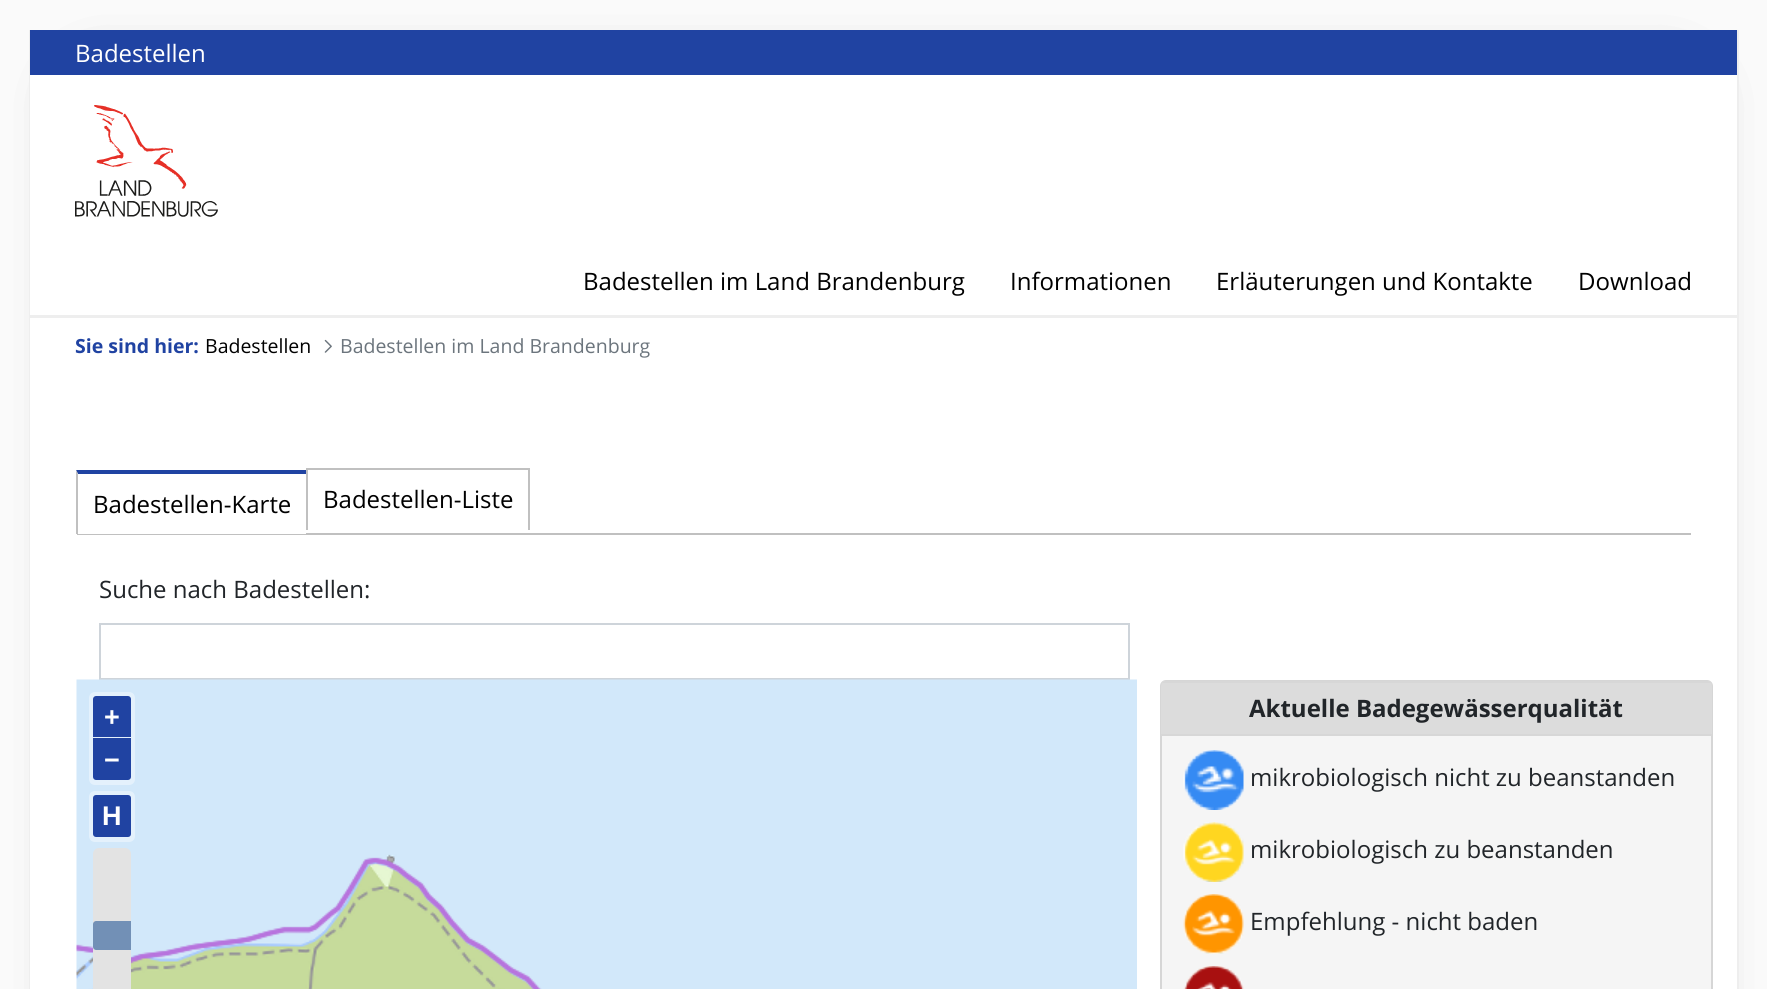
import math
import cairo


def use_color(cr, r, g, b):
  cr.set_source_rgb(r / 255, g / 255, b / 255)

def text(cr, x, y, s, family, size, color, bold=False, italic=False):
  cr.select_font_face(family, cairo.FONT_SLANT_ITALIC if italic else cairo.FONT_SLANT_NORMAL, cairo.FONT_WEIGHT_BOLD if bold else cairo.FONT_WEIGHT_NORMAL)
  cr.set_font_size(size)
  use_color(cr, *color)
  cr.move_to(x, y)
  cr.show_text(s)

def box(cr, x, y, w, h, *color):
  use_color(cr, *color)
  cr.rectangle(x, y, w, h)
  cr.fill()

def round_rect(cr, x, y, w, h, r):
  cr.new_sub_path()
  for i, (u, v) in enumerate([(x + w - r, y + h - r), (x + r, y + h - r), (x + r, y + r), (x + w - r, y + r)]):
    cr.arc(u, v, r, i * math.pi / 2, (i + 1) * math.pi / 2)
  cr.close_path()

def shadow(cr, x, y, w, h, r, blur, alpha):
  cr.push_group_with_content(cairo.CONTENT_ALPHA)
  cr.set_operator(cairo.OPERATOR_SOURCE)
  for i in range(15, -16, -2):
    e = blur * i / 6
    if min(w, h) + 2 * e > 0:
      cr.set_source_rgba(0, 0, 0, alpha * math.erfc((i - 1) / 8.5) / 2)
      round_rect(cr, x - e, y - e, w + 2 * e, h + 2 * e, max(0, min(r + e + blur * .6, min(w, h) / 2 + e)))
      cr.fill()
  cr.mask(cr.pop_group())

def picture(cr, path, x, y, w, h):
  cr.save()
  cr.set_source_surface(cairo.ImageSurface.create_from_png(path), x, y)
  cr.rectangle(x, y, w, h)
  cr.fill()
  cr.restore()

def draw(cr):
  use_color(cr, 250, 250, 250)
  cr.paint()
  use_color(cr, 0, 0, 0)
  shadow(cr, 92, 93, 1584, 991, 0, 31.5, 1)
  box(cr, 1737, 30, 2, 959, 238, 238, 238)
  box(cr, 29, 30, 1, 959, 238, 238, 238)
  box(cr, 30, 30, 1707, 45, 32, 67, 162)
  box(cr, 30, 75, 1707, 240, 255, 255, 255)
  picture(cr, "img_01.png", 75, 105, 143, 112)
  box(cr, 30, 315, 1707, 3, 238, 238, 238)
  box(cr, 30, 318, 1707, 671, 255, 255, 255)
  picture(cr, "img_02.png", 324, 339, 8, 14)
  box(cr, 77, 533, 1614, 2, 192, 192, 192)
  box(cr, 77, 533, 229, 1, 255, 255, 255)
  use_color(cr, 32, 67, 162)
  cr.new_path()
  cr.move_to(76, 470)
  cr.line_to(306, 470)
  cr.line_to(306, 474)
  cr.line_to(78, 474)
  cr.close_path()
  cr.fill()
  use_color(cr, 192, 192, 192)
  cr.new_path()
  cr.move_to(76, 534)
  cr.line_to(76, 470)
  cr.line_to(78, 474)
  cr.line_to(78, 534)
  cr.close_path()
  cr.fill()
  box(cr, 306, 468, 224, 2, 192, 192, 192)
  box(cr, 528, 468, 2, 62, 192, 192, 192)
  box(cr, 306, 468, 2, 62, 192, 192, 192)
  cr.rectangle(100, 624, 1029, 55)
  use_color(cr, 206, 212, 218)
  cr.stroke()
  picture(cr, "img_03.png", 76, 679, 1061, 310)
  use_color(cr, 228, 241, 252)
  round_rect(cr, 89, 692, 46, 93, 6)
  cr.fill()
  use_color(cr, 32, 67, 162)
  cr.new_path()
  cr.move_to(96, 697)
  cr.line_to(128, 697)
  cr.curve_to(129, 697, 130, 698, 130, 699)
  cr.line_to(130, 736)
  cr.line_to(94, 736)
  cr.line_to(94, 699)
  cr.curve_to(94, 698, 95, 697, 96, 697)
  cr.close_path()
  cr.fill_preserve()
  cr.stroke()
  cr.new_path()
  cr.move_to(94, 739)
  cr.line_to(130, 739)
  cr.line_to(130, 777)
  cr.curve_to(130, 778, 129, 779, 128, 779)
  cr.line_to(96, 779)
  cr.curve_to(95, 779, 94, 778, 94, 777)
  cr.close_path()
  cr.fill_preserve()
  cr.stroke()
  use_color(cr, 228, 241, 252)
  round_rect(cr, 89, 791, 46, 51, 6)
  cr.fill()
  use_color(cr, 32, 67, 162)
  round_rect(cr, 94, 796, 36, 40, 2)
  cr.fill_preserve()
  cr.stroke()
  use_color(cr, 227, 227, 227)
  round_rect(cr, 93, 848, 38, 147, 6)
  cr.fill()
  use_color(cr, 114, 144, 182)
  cr.new_path()
  cr.move_to(96, 921)
  cr.line_to(131, 921)
  cr.line_to(131, 950)
  cr.line_to(96, 950)
  cr.curve_to(94.5, 950, 93, 948.5, 93, 947)
  cr.line_to(93, 924)
  cr.curve_to(93, 922.5, 94.5, 921, 96, 921)
  cr.close_path()
  cr.fill()
  use_color(cr, 245, 245, 245)
  round_rect(cr, 1161, 681, 551, 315, 5)
  cr.fill_preserve()
  use_color(cr, 214, 214, 214)
  cr.stroke()
  use_color(cr, 220, 220, 220)
  cr.new_path()
  cr.move_to(1166, 681)
  cr.line_to(1707, 681)
  cr.curve_to(1710, 681, 1712, 683, 1712, 686)
  cr.line_to(1712, 735)
  cr.line_to(1161, 735)
  cr.line_to(1161, 686)
  cr.curve_to(1161, 683, 1163, 681, 1166, 681)
  cr.close_path()
  cr.fill()
  cr.save()
  round_rect(cr, 1161, 681, 551, 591, 5)
  cr.clip()
  box(cr, 1161, 681, 551, 2, 215, 215, 215)
  cr.restore()
  box(cr, 1161, 734, 551, 2, 215, 215, 215)
  picture(cr, "img_04.png", 1183, 750, 61, 60)
  picture(cr, "img_05.png", 1183, 822, 61, 60)
  picture(cr, "img_06.png", 1183, 894, 61, 60)
  picture(cr, "img_07.png", 1183, 966, 61, 23)
  text(cr, 75, 62, "Badestellen", "Open Sans", 24, (255, 255, 255))
  text(cr, 583, 290, "Badestellen im Land Brandenburg", "Open Sans", 24, (0, 0, 0))
  text(cr, 1010, 290, "Informationen", "Open Sans", 24, (0, 0, 0))
  text(cr, 1216, 290, "Erläuterungen und Kontakte", "Open Sans", 24, (0, 0, 0))
  text(cr, 1578, 290, "Download", "Open Sans", 24, (0, 0, 0))
  text(cr, 75, 353, "Sie sind hier:", "Open Sans", 19.5, (32, 67, 162), bold=True)
  text(cr, 205, 353, "Badestellen", "Open Sans", 19.5, (0, 0, 0))
  text(cr, 340, 353, "Badestellen im Land Brandenburg", "Open Sans", 19.5, (108, 117, 125))
  text(cr, 93, 513, "Badestellen-Karte", "Open Sans", 24, (0, 0, 0))
  text(cr, 323, 508, "Badestellen-Liste", "Open Sans", 24, (0, 0, 0))
  text(cr, 99, 598, "Suche nach Badestellen:", "Open Sans", 24, (33, 37, 41))
  text(cr, 104, 726, "+", "Liberation Sans", 27, (255, 255, 255), bold=True)
  text(cr, 104, 769, "−", "Liberation Sans", 27, (255, 255, 255), bold=True)
  text(cr, 102, 825, "H", "Liberation Sans", 27, (255, 255, 255), bold=True)
  text(cr, 1249, 717, "Aktuelle Badegewässerqualität", "Open Sans", 24, (33, 37, 41), bold=True)
  text(cr, 1250, 786, "mikrobiologisch nicht zu beanstanden", "Open Sans", 24, (33, 37, 41))
  text(cr, 1250, 858, "mikrobiologisch zu beanstanden", "Open Sans", 24, (33, 37, 41))
  text(cr, 1250, 930, "Empfehlung - nicht baden", "Open Sans", 24, (33, 37, 41))


surface = cairo.ImageSurface(cairo.FORMAT_RGB24, 1767, 989)
cr = cairo.Context(surface)
options = cairo.FontOptions()
options.set_hint_metrics(cairo.HINT_METRICS_OFF)
options.set_hint_style(cairo.HINT_STYLE_NONE)
cr.set_font_options(options)
cr.set_miter_limit(4)
draw(cr)
surface.write_to_png("out.png")
